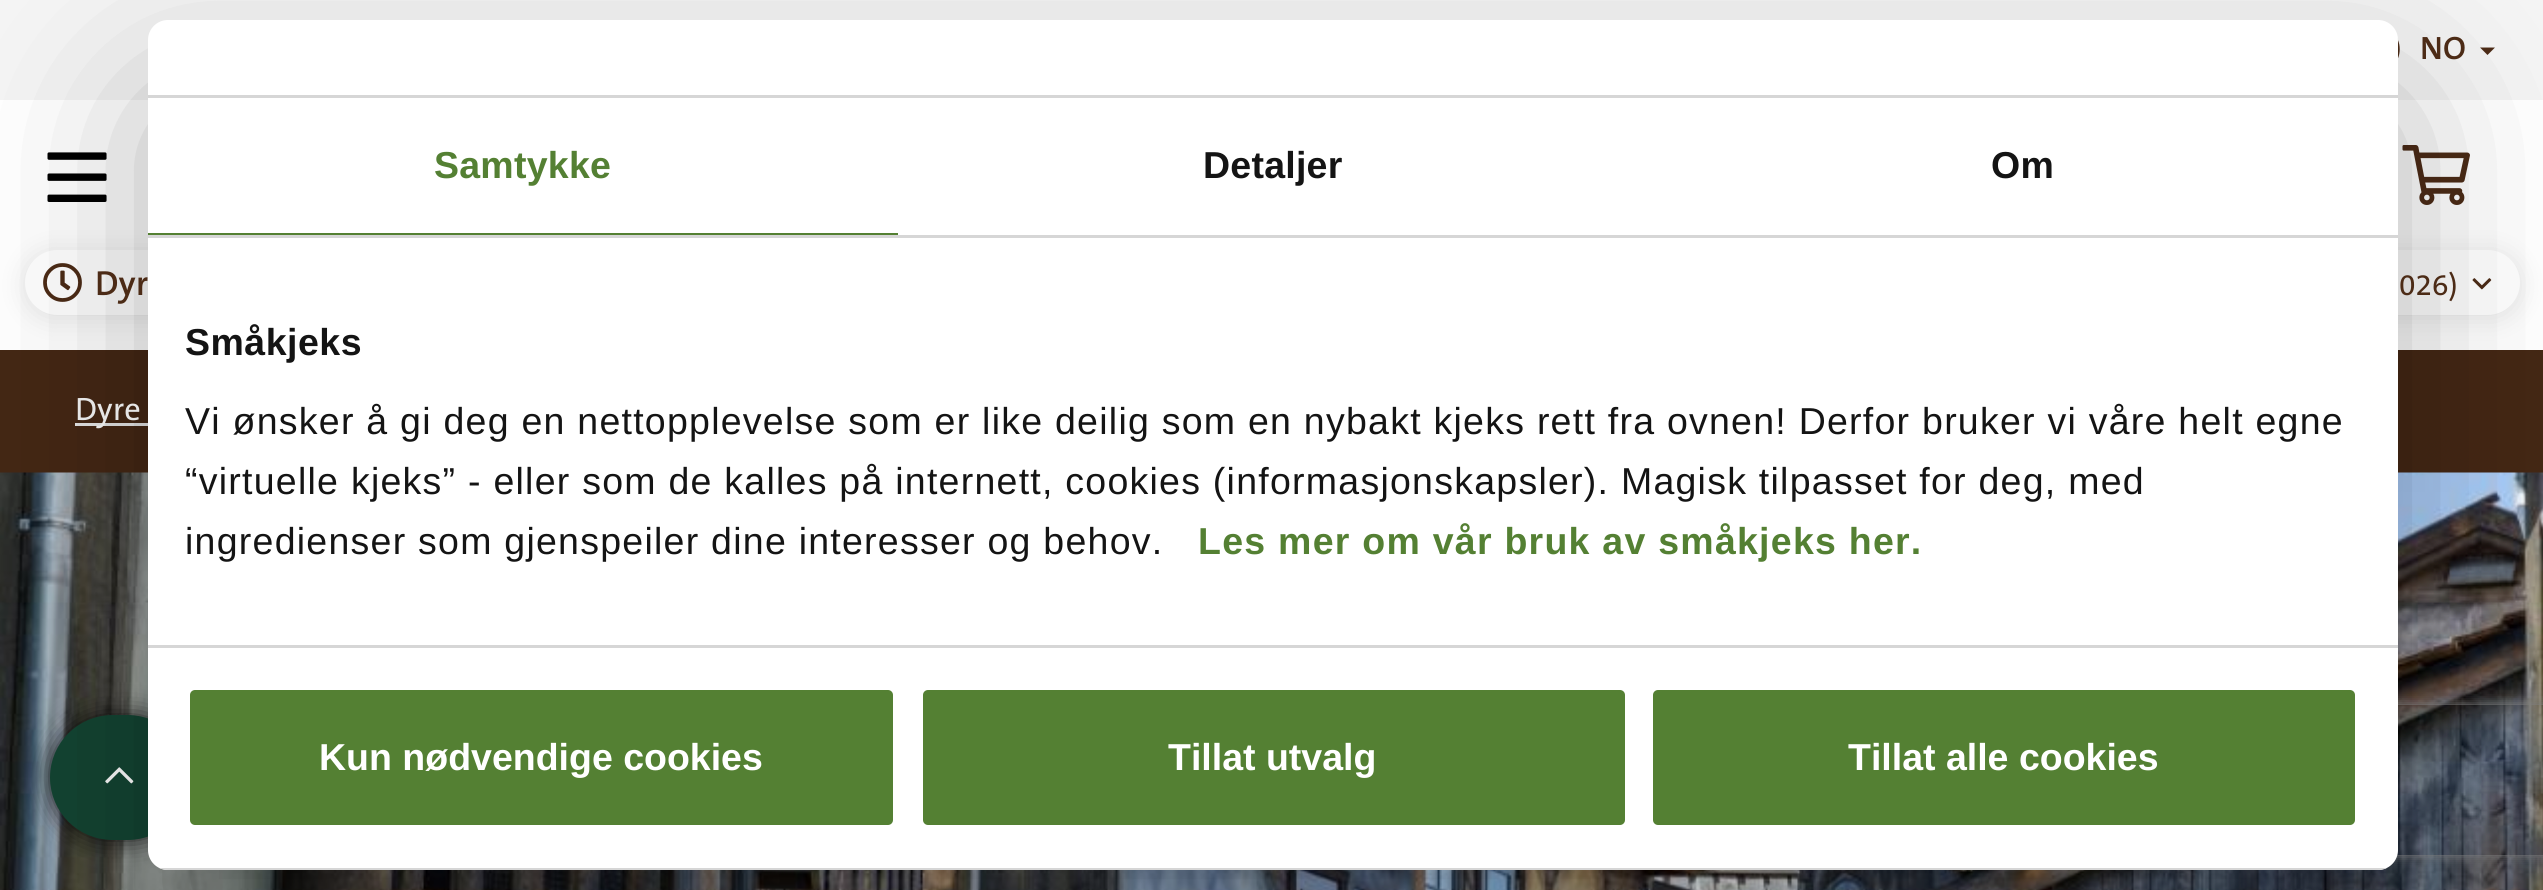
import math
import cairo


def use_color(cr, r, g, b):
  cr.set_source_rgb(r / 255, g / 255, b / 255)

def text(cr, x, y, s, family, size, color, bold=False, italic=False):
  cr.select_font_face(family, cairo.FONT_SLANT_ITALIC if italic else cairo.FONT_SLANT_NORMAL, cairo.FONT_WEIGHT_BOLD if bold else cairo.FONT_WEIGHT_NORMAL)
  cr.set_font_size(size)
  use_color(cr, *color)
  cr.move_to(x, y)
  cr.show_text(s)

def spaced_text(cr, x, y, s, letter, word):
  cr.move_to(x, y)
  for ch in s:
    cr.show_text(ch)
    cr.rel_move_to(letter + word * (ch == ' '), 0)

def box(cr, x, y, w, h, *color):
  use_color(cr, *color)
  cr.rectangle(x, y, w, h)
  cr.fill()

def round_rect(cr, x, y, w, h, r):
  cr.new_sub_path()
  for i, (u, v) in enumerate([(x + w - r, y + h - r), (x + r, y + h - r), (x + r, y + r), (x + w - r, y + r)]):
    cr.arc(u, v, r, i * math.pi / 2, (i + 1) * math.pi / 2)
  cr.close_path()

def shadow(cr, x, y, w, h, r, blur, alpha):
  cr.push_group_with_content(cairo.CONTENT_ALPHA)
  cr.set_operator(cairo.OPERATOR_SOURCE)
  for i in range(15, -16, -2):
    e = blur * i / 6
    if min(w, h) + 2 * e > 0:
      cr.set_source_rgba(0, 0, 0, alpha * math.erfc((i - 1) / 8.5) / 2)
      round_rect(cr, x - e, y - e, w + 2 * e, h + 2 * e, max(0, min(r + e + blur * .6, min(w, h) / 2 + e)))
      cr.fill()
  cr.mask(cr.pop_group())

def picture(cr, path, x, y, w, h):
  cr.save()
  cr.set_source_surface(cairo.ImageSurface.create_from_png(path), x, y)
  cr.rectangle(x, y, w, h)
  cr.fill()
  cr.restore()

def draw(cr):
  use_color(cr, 255, 255, 255)
  cr.paint()
  box(cr, 0, 0, 2543, 100, 244, 244, 244)
  picture(cr, "img_01.png", 2397, 38, 3, 20)
  use_color(cr, 76, 43, 22)
  cr.new_path()
  cr.move_to(2480, 47.5)
  cr.line_to(2495, 47.5)
  cr.line_to(2487.5, 55)
  cr.close_path()
  cr.fill()
  box(cr, 0, 350, 2543, 123, 68, 39, 20)
  use_color(cr, 0, 0, 0)
  shadow(cr, 25, 253, 2495, 65, 32.5, 12.5, 0.1)
  use_color(cr, 255, 255, 255)
  round_rect(cr, 25, 250, 2495, 65, 32.5)
  cr.fill()
  picture(cr, "img_02.png", 43, 263, 39, 39)
  picture(cr, "img_03.png", 2472, 278, 20, 12)
  picture(cr, "img_04.png", 47, 152, 60, 50)
  picture(cr, "img_05.png", 2402, 145, 68, 60)
  box(cr, 75, 423, 73, 3, 230, 230, 230)
  picture(cr, "img_06.png", 0, 472, 2543, 418)
  use_color(cr, 0, 0, 0)
  shadow(cr, 50, 715, 140, 125, 62.5, 12.5, 0.8)
  use_color(cr, 19, 68, 50)
  round_rect(cr, 52.5, 717.5, 135, 120, 60)
  cr.fill_preserve()
  cr.set_line_width(5)
  cr.stroke()
  picture(cr, "img_07.png", 105, 767, 29, 17)
  use_color(cr, 0, 0, 0)
  shadow(cr, 148, 100, 2250, 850, 20, 85, 0.3)
  cr.save()
  cr.set_fill_rule(cairo.FILL_RULE_EVEN_ODD)
  cr.new_path()
  cr.move_to(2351, 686)
  cr.line_to(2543, 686)
  cr.line_to(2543, 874)
  cr.line_to(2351, 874)
  cr.close_path()
  cr.move_to(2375, 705)
  cr.line_to(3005, 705)
  cr.curve_to(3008, 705, 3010, 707, 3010, 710)
  cr.line_to(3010, 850)
  cr.curve_to(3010, 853, 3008, 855, 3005, 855)
  cr.line_to(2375, 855)
  cr.curve_to(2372, 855, 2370, 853, 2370, 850)
  cr.line_to(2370, 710)
  cr.curve_to(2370, 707, 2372, 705, 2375, 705)
  cr.close_path()
  cr.clip()
  use_color(cr, 128, 128, 128)
  shadow(cr, 2370, 705, 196, 150, 5, 6, 1)
  cr.restore()
  use_color(cr, 255, 255, 255)
  round_rect(cr, 148, 20, 2250, 850, 20)
  cr.fill()
  box(cr, 148, 95, 2250, 3, 214, 214, 214)
  box(cr, 148, 235, 2250, 3, 214, 214, 214)
  box(cr, 148, 233, 750, 2, 84, 128, 51)
  box(cr, 148, 645, 2250, 3, 214, 214, 214)
  cr.save()
  round_rect(cr, 148, 20, 2250, 850, 20)
  cr.clip()
  box(cr, 159, 868, 2228, 2, 214, 214, 214)
  cr.restore()
  use_color(cr, 84, 128, 51)
  round_rect(cr, 187.5, 687.5, 708, 140, 7.5)
  cr.fill_preserve()
  use_color(cr, 255, 255, 255)
  cr.stroke()
  use_color(cr, 84, 128, 51)
  round_rect(cr, 920.5, 687.5, 707, 140, 7.5)
  cr.fill_preserve()
  use_color(cr, 255, 255, 255)
  cr.stroke()
  use_color(cr, 84, 128, 51)
  round_rect(cr, 1650.5, 687.5, 707, 140, 7.5)
  cr.fill_preserve()
  use_color(cr, 255, 255, 255)
  cr.stroke()
  text(cr, 2420, 59, "NO", "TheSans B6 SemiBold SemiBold", 32.5, (76, 43, 22))
  text(cr, 95, 295, "Dyr", "TheSans B6 SemiBold SemiBold", 35, (76, 43, 22))
  text(cr, 2399, 295, "026)", "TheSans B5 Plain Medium", 30, (76, 43, 22))
  text(cr, 75, 420, "Dyre", "TheSans B5 Plain Medium", 32.5, (230, 230, 230))
  cr.select_font_face("Liberation Sans", cairo.FONT_SLANT_NORMAL, cairo.FONT_WEIGHT_BOLD)
  cr.set_font_size(37.5)
  use_color(cr, 84, 128, 51)
  spaced_text(cr, 434, 178, "Samtykke", 0.25, 0)
  use_color(cr, 20, 20, 20)
  spaced_text(cr, 1203, 178, "Detaljer", 0.25, 0)
  spaced_text(cr, 1991, 178, "Om", 0.25, 0)
  spaced_text(cr, 185, 355, "Småkjeks", 0.5, 0)
  cr.select_font_face("Liberation Sans")
  spaced_text(cr, 185, 434, "Vi ønsker å gi deg en nettopplevelse som er like deilig som en nybakt kjeks rett fra ovnen! Derfor bruker vi våre helt egne", 1.25, 0)
  spaced_text(cr, 185, 494, "“virtuelle kjeks” - eller som de kalles på internett, cookies (informasjonskapsler). Magisk tilpasset for deg, med", 1.25, 0)
  spaced_text(cr, 185, 554, "ingredienser som gjenspeiler dine interesser og behov.", 1.25, 0)
  cr.select_font_face("Liberation Sans", cairo.FONT_SLANT_NORMAL, cairo.FONT_WEIGHT_BOLD)
  use_color(cr, 84, 128, 51)
  spaced_text(cr, 1198, 554, "Les mer om vår bruk av småkjeks her.", 1.25, 0)
  text(cr, 319, 770, "Kun nødvendige cookies", "Liberation Sans", 37.5, (255, 255, 255), bold=True)
  text(cr, 1168, 770, "Tillat utvalg", "Liberation Sans", 37.5, (255, 255, 255), bold=True)
  text(cr, 1848, 770, "Tillat alle cookies", "Liberation Sans", 37.5, (255, 255, 255), bold=True)


surface = cairo.ImageSurface(cairo.FORMAT_RGB24, 2543, 890)
cr = cairo.Context(surface)
options = cairo.FontOptions()
options.set_hint_metrics(cairo.HINT_METRICS_OFF)
options.set_hint_style(cairo.HINT_STYLE_NONE)
cr.set_font_options(options)
cr.set_miter_limit(4)
draw(cr)
surface.write_to_png("out.png")
